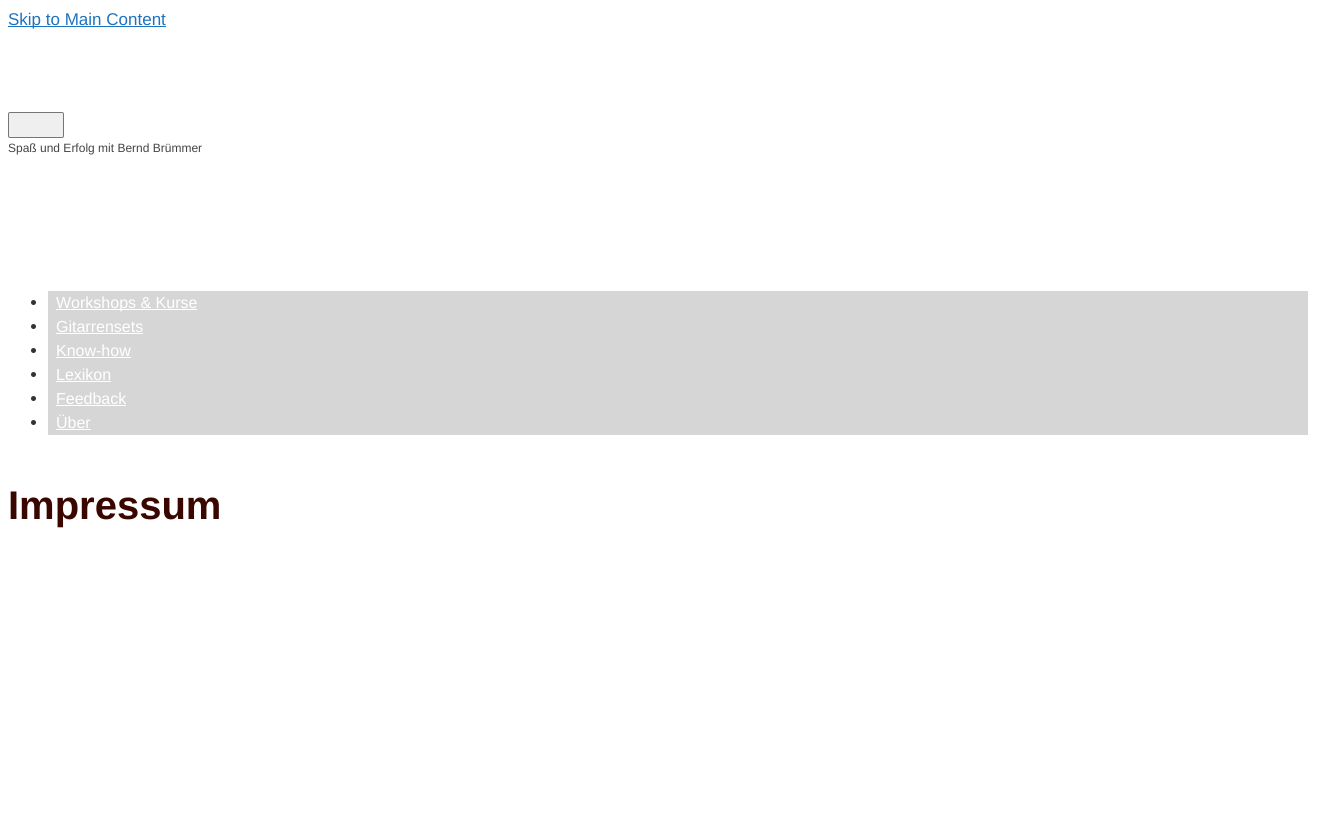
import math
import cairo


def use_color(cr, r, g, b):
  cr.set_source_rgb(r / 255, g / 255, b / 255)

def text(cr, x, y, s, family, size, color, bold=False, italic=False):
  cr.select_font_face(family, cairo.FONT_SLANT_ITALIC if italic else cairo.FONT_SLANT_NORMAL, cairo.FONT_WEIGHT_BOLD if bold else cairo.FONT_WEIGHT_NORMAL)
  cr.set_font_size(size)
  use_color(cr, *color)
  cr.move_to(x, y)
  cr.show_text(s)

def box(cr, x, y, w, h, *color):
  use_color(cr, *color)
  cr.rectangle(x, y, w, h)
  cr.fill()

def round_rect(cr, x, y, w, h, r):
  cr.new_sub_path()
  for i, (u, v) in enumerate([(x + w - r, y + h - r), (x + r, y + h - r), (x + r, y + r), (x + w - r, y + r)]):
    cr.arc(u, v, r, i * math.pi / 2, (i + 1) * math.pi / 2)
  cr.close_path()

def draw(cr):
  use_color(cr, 255, 255, 255)
  cr.paint()
  box(cr, 8, 26, 158, 1, 30, 115, 190)
  use_color(cr, 239, 239, 239)
  round_rect(cr, 8.5, 112.5, 55, 25, 1.5)
  cr.fill_preserve()
  use_color(cr, 118, 118, 118)
  cr.set_line_width(1)
  cr.stroke()
  box(cr, 48, 291, 1260, 144, 214, 214, 214)
  use_color(cr, 51, 51, 51)
  cr.arc(33.5, 302.5, 2.5, 0, 2 * math.pi)
  cr.fill()
  box(cr, 56, 309, 141, 1, 255, 255, 255)
  use_color(cr, 51, 51, 51)
  cr.arc(33.5, 326.5, 2.5, 0, 2 * math.pi)
  cr.fill()
  box(cr, 56, 333, 87, 1, 255, 255, 255)
  use_color(cr, 51, 51, 51)
  cr.arc(33.5, 350.5, 2.5, 0, 2 * math.pi)
  cr.fill()
  box(cr, 56, 357, 75, 1, 255, 255, 255)
  use_color(cr, 51, 51, 51)
  cr.arc(33.5, 374.5, 2.5, 0, 2 * math.pi)
  cr.fill()
  box(cr, 56, 381, 55, 1, 255, 255, 255)
  use_color(cr, 51, 51, 51)
  cr.arc(33.5, 398.5, 2.5, 0, 2 * math.pi)
  cr.fill()
  box(cr, 56, 405, 70, 1, 255, 255, 255)
  use_color(cr, 51, 51, 51)
  cr.arc(33.5, 422.5, 2.5, 0, 2 * math.pi)
  cr.fill()
  box(cr, 56, 429, 35, 1, 255, 255, 255)
  text(cr, 8, 25, "Skip to Main Content", "Liberation Sans", 17, (30, 115, 190))
  text(cr, 8, 152, "Spaß und Erfolg mit Bernd Brümmer", "Liberation Sans", 12, (68, 68, 68))
  text(cr, 56, 308, "Workshops & Kurse", "Liberation Sans", 16, (255, 255, 255))
  text(cr, 56, 332, "Gitarrensets", "Liberation Sans", 16, (255, 255, 255))
  text(cr, 56, 356, "Know-how", "Liberation Sans", 16, (255, 255, 255))
  text(cr, 56, 380, "Lexikon", "Liberation Sans", 16, (255, 255, 255))
  text(cr, 56, 404, "Feedback", "Liberation Sans", 16, (255, 255, 255))
  text(cr, 56, 428, "Über", "Liberation Sans", 16, (255, 255, 255))
  text(cr, 8, 519, "Impressum", "Liberation Sans", 40, (58, 7, 0), bold=True)


surface = cairo.ImageSurface(cairo.FORMAT_RGB24, 1321, 826)
cr = cairo.Context(surface)
options = cairo.FontOptions()
options.set_hint_metrics(cairo.HINT_METRICS_OFF)
options.set_hint_style(cairo.HINT_STYLE_NONE)
cr.set_font_options(options)
cr.set_miter_limit(4)
draw(cr)
surface.write_to_png("out.png")
